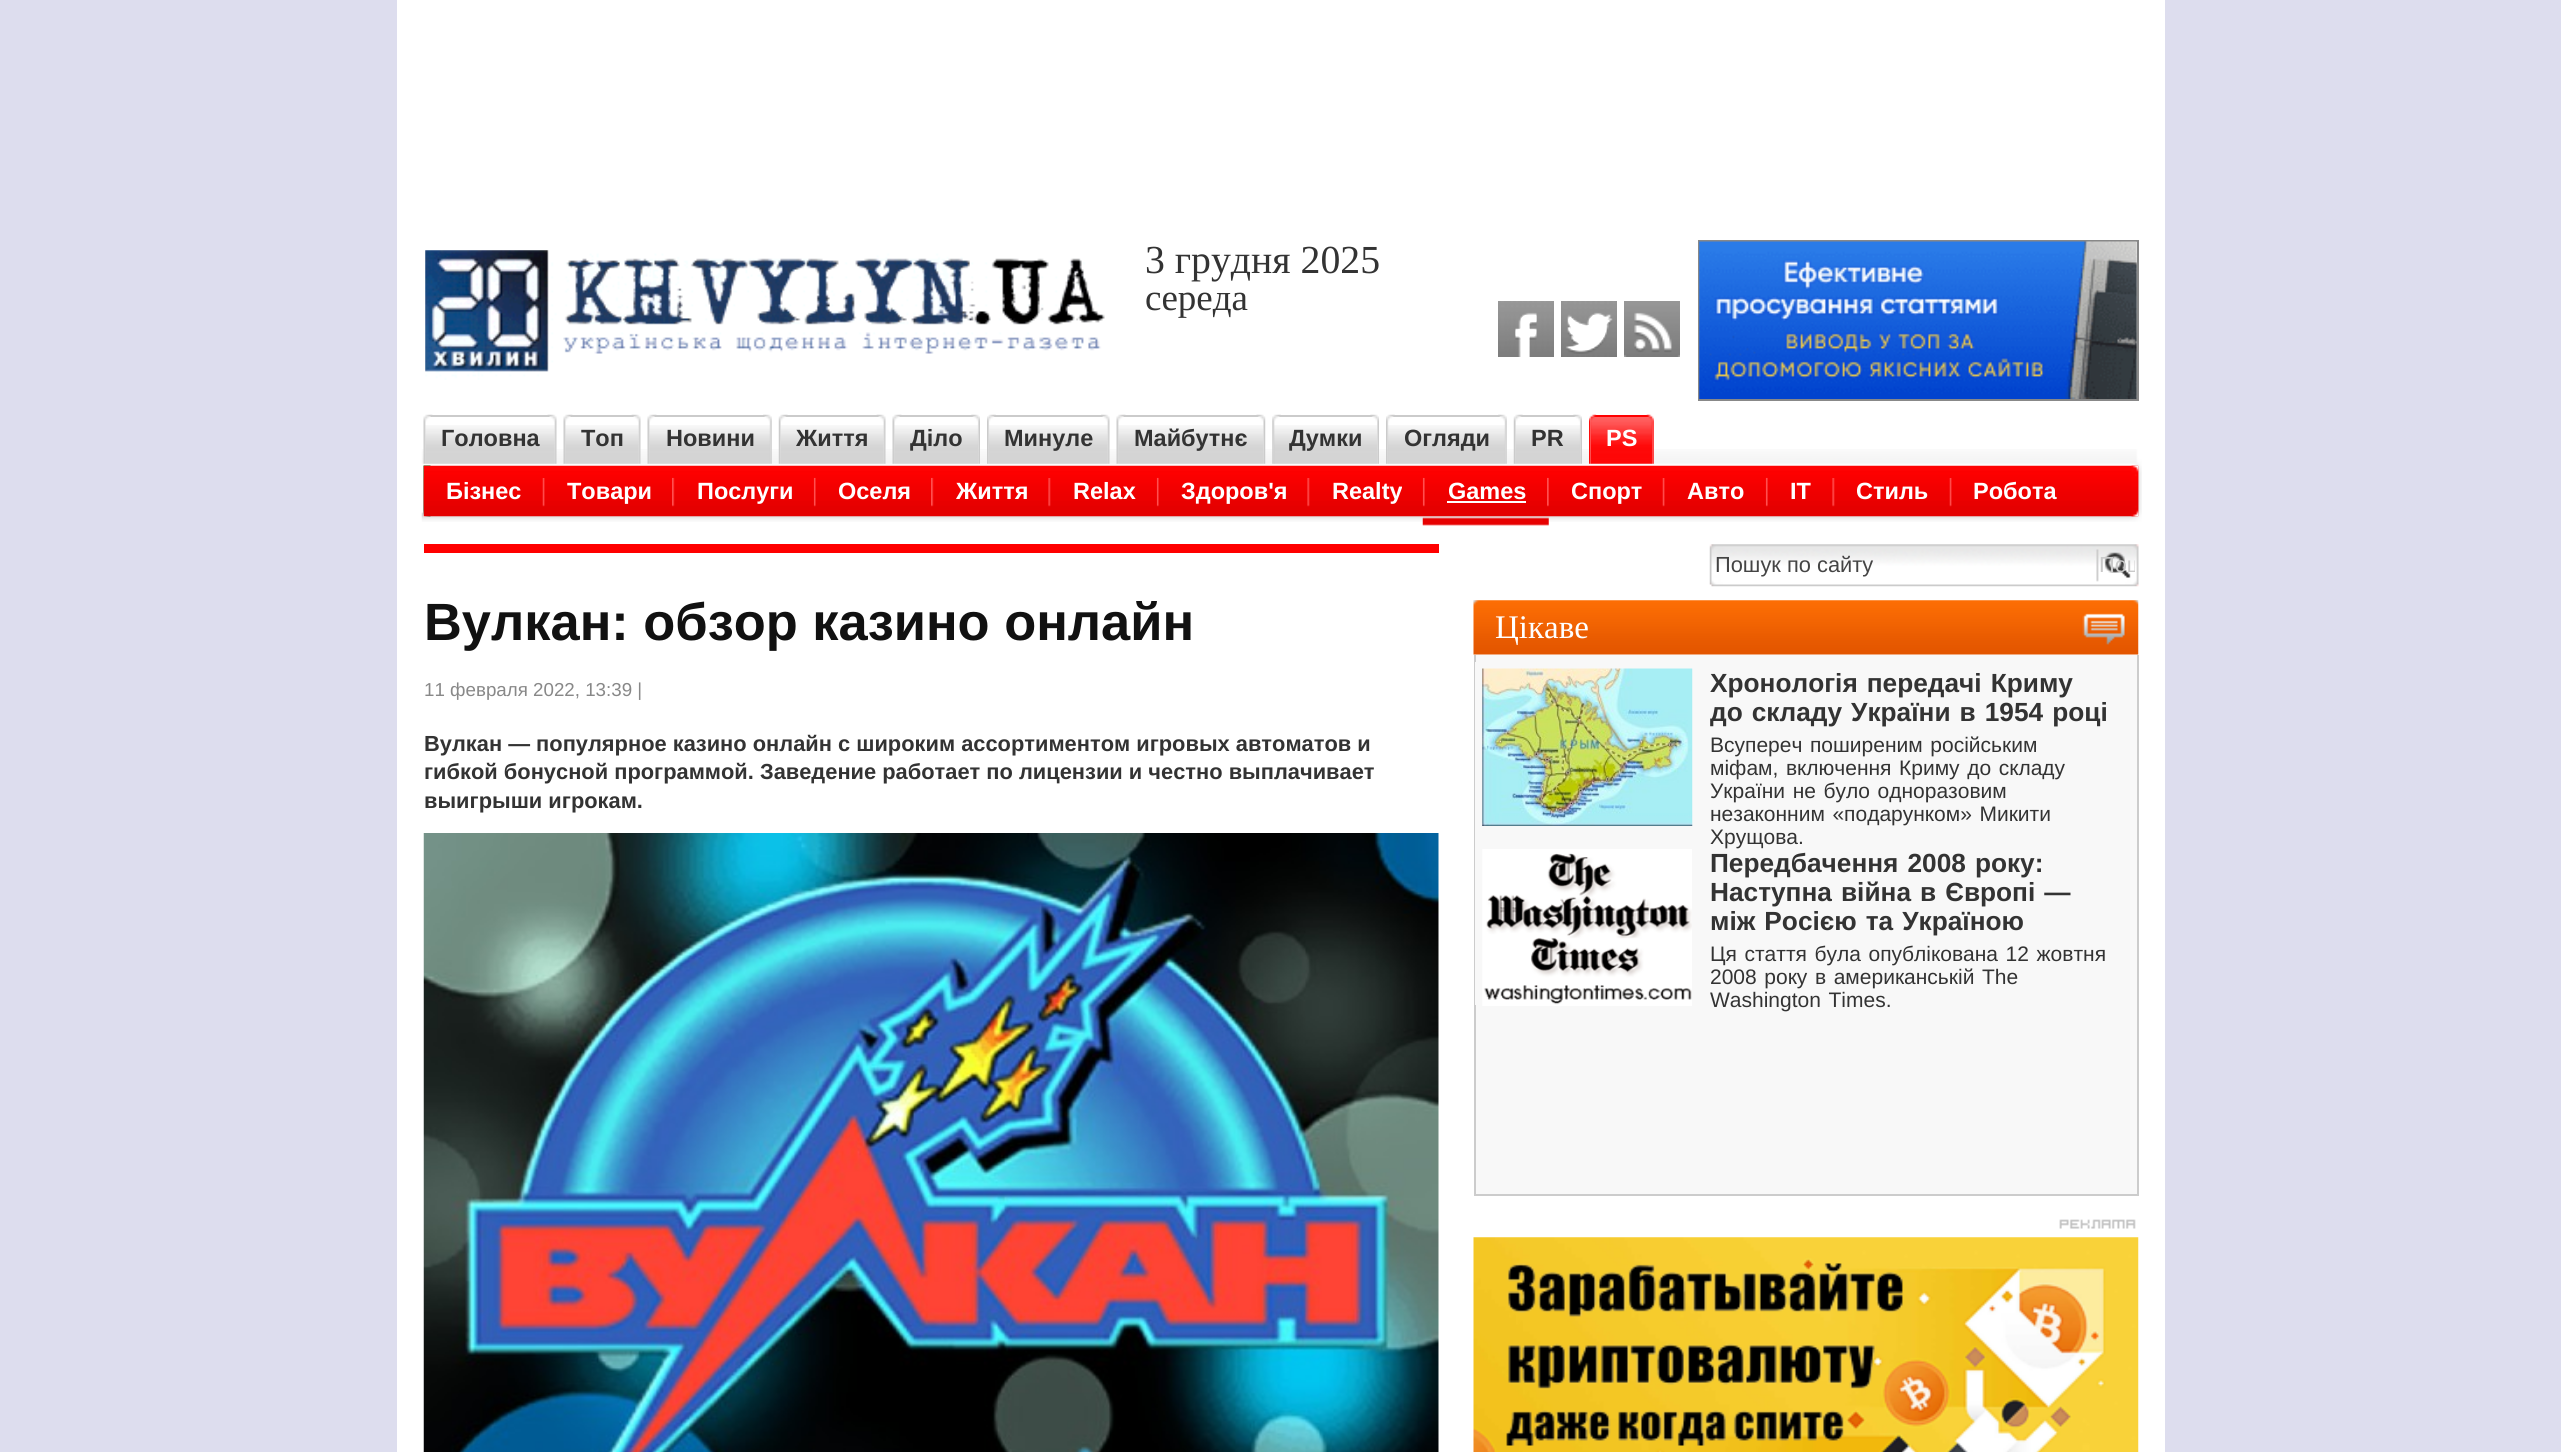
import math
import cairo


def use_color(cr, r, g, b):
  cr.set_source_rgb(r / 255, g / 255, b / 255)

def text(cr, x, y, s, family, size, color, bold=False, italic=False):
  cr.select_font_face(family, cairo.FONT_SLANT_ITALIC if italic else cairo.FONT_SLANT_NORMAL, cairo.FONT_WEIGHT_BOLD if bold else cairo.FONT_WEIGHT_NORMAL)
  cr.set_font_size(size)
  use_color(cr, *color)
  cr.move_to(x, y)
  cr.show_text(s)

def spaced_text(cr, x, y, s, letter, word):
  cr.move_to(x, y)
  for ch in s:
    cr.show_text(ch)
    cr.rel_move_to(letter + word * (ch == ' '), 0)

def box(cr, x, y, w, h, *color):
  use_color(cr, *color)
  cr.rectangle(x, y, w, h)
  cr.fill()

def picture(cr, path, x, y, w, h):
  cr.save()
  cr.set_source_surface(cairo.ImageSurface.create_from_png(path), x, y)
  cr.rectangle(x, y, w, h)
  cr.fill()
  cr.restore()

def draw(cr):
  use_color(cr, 221, 221, 238)
  cr.paint()
  box(cr, 397, 0, 1768, 1452, 255, 255, 255)
  picture(cr, "img_01.png", 425, 250, 680, 130)
  cr.rectangle(1699, 241, 439, 159)
  use_color(cr, 136, 136, 136)
  cr.stroke()
  picture(cr, "img_02.png", 1699, 241, 438, 158)
  picture(cr, "img_03.png", 1498, 301, 56, 56)
  picture(cr, "img_04.png", 1561, 301, 56, 56)
  picture(cr, "img_05.png", 1624, 301, 56, 56)
  picture(cr, "img_06.png", 421, 449, 1721, 73)
  picture(cr, "img_07.png", 425, 425, 130, 39)
  box(cr, 425, 415, 130, 2, 203, 203, 203)
  picture(cr, "img_08.png", 547, 414, 10, 50)
  picture(cr, "img_09.png", 423, 414, 10, 50)
  picture(cr, "img_10.png", 565, 425, 74, 39)
  box(cr, 565, 415, 74, 2, 203, 203, 203)
  picture(cr, "img_11.png", 631, 414, 10, 50)
  picture(cr, "img_12.png", 563, 414, 10, 50)
  picture(cr, "img_13.png", 649, 425, 121, 39)
  box(cr, 649, 415, 121, 2, 203, 203, 203)
  picture(cr, "img_14.png", 763, 414, 9, 50)
  picture(cr, "img_15.png", 647, 414, 10, 50)
  picture(cr, "img_16.png", 780, 425, 104, 39)
  box(cr, 781, 415, 103, 2, 203, 203, 203)
  picture(cr, "img_17.png", 876, 414, 10, 50)
  picture(cr, "img_18.png", 778, 414, 10, 50)
  picture(cr, "img_19.png", 894, 425, 85, 39)
  box(cr, 894, 415, 84, 2, 203, 203, 203)
  picture(cr, "img_20.png", 971, 414, 9, 50)
  picture(cr, "img_15.png", 892, 414, 10, 50)
  picture(cr, "img_21.png", 988, 425, 120, 39)
  box(cr, 989, 415, 119, 2, 203, 203, 203)
  picture(cr, "img_22.png", 1101, 414, 9, 50)
  picture(cr, "img_23.png", 987, 414, 9, 50)
  picture(cr, "img_24.png", 1118, 425, 146, 39)
  box(cr, 1118, 415, 146, 2, 203, 203, 203)
  picture(cr, "img_25.png", 1256, 414, 10, 50)
  picture(cr, "img_15.png", 1116, 414, 10, 50)
  picture(cr, "img_26.png", 1274, 425, 104, 39)
  box(cr, 1274, 415, 103, 2, 203, 203, 203)
  picture(cr, "img_27.png", 1370, 414, 9, 50)
  picture(cr, "img_28.png", 1272, 414, 9, 50)
  picture(cr, "img_29.png", 1387, 425, 118, 39)
  box(cr, 1388, 415, 117, 2, 203, 203, 203)
  picture(cr, "img_30.png", 1498, 414, 9, 50)
  picture(cr, "img_31.png", 1386, 414, 9, 50)
  picture(cr, "img_32.png", 1515, 425, 66, 39)
  box(cr, 1516, 415, 64, 2, 203, 203, 203)
  picture(cr, "img_33.png", 1573, 414, 9, 50)
  picture(cr, "img_34.png", 1513, 414, 10, 50)
  picture(cr, "img_35.png", 1590, 417, 62, 47)
  box(cr, 1591, 415, 61, 2, 255, 0, 0)
  picture(cr, "img_36.png", 1646, 414, 8, 50)
  picture(cr, "img_37.png", 1589, 414, 8, 50)
  picture(cr, "img_38.png", 423, 465, 8, 52)
  picture(cr, "img_39.png", 423, 465, 1716, 52)
  picture(cr, "img_40.png", 2131, 465, 8, 52)
  picture(cr, "img_41.png", 423, 478, 1, 28)
  picture(cr, "img_42.png", 542, 478, 3, 29)
  picture(cr, "img_43.png", 672, 477, 3, 30)
  picture(cr, "img_44.png", 813, 477, 3, 30)
  picture(cr, "img_43.png", 931, 477, 3, 30)
  picture(cr, "img_45.png", 1048, 478, 3, 29)
  picture(cr, "img_44.png", 1156, 477, 3, 30)
  picture(cr, "img_45.png", 1307, 478, 3, 29)
  picture(cr, "img_46.png", 1422, 517, 127, 9)
  picture(cr, "img_47.png", 1422, 477, 3, 30)
  box(cr, 1447, 501, 79, 2, 255, 255, 255)
  picture(cr, "img_48.png", 1547, 477, 2, 30)
  picture(cr, "img_42.png", 1662, 478, 3, 29)
  picture(cr, "img_47.png", 1765, 477, 3, 30)
  picture(cr, "img_45.png", 1832, 478, 3, 29)
  picture(cr, "img_42.png", 1949, 478, 3, 29)
  picture(cr, "img_49.png", 1709, 544, 430, 43)
  box(cr, 424, 544, 1015, 9, 255, 0, 0)
  picture(cr, "img_50.png", 423, 833, 1016, 619)
  picture(cr, "img_51.png", 1473, 600, 666, 55)
  box(cr, 1476, 655, 661, 539, 248, 248, 248)
  box(cr, 2137, 655, 2, 540, 204, 204, 204)
  box(cr, 1474, 1194, 665, 2, 204, 204, 204)
  box(cr, 1474, 655, 2, 540, 204, 204, 204)
  box(cr, 1475, 662, 1, 343, 248, 248, 248)
  picture(cr, "img_52.png", 1482, 668, 211, 158)
  picture(cr, "img_53.png", 1482, 849, 210, 157)
  picture(cr, "img_54.png", 2059, 1219, 77, 10)
  picture(cr, "img_55.png", 1473, 1237, 666, 215)
  text(cr, 1145, 273, "3 грудня 2025", "Liberation Serif", 39.75, (51, 51, 51))
  text(cr, 1145, 310, "середа", "Liberation Serif", 37, (51, 51, 51))
  text(cr, 441, 446, "Головна", "Liberation Sans", 23.5, (51, 51, 51), bold=True)
  text(cr, 581, 446, "Топ", "Liberation Sans", 23.5, (51, 51, 51), bold=True)
  text(cr, 666, 446, "Новини", "Liberation Sans", 23.5, (51, 51, 51), bold=True)
  text(cr, 796, 446, "Життя", "Liberation Sans", 23.5, (51, 51, 51), bold=True)
  text(cr, 910, 446, "Діло", "Liberation Sans", 23.5, (51, 51, 51), bold=True)
  text(cr, 1004, 446, "Минуле", "Liberation Sans", 23.5, (51, 51, 51), bold=True)
  text(cr, 1134, 446, "Майбутнє", "Liberation Sans", 23.5, (51, 51, 51), bold=True)
  text(cr, 1289, 446, "Думки", "Liberation Sans", 23.5, (51, 51, 51), bold=True)
  text(cr, 1404, 446, "Огляди", "Liberation Sans", 23.5, (51, 51, 51), bold=True)
  text(cr, 1531, 446, "PR", "Liberation Sans", 23.5, (51, 51, 51), bold=True)
  text(cr, 1606, 446, "PS", "Liberation Sans", 23.5, (255, 255, 255), bold=True)
  text(cr, 446, 499, "Бізнес", "Liberation Sans", 23.5, (255, 255, 255), bold=True)
  text(cr, 567, 499, "Товари", "Liberation Sans", 23.5, (255, 255, 255), bold=True)
  text(cr, 697, 499, "Послуги", "Liberation Sans", 23.5, (255, 255, 255), bold=True)
  text(cr, 838, 499, "Оселя", "Liberation Sans", 23.5, (255, 255, 255), bold=True)
  text(cr, 956, 499, "Життя", "Liberation Sans", 23.5, (255, 255, 255), bold=True)
  text(cr, 1073, 499, "Relax", "Liberation Sans", 23.5, (255, 255, 255), bold=True)
  text(cr, 1181, 499, "Здоров'я", "Liberation Sans", 23.5, (255, 255, 255), bold=True)
  text(cr, 1332, 499, "Realty", "Liberation Sans", 23.5, (255, 255, 255), bold=True)
  text(cr, 1448, 499, "Games", "Liberation Sans", 23.5, (255, 255, 255), bold=True)
  text(cr, 1571, 499, "Спорт", "Liberation Sans", 23.5, (255, 255, 255), bold=True)
  text(cr, 1687, 499, "Авто", "Liberation Sans", 23.5, (255, 255, 255), bold=True)
  text(cr, 1790, 499, "IT", "Liberation Sans", 23.5, (255, 255, 255), bold=True)
  text(cr, 1856, 499, "Стиль", "Liberation Sans", 23.5, (255, 255, 255), bold=True)
  text(cr, 1973, 499, "Робота", "Liberation Sans", 23.5, (255, 255, 255), bold=True)
  text(cr, 1715, 572, "Пошук по сайту", "Liberation Sans", 21.85, (68, 68, 68))
  cr.save()
  cr.rectangle(2093, 551, 42, 32)
  cr.clip()
  text(cr, 2099, 572, "Пош", "Liberation Sans", 21.85, (201, 201, 201))
  cr.restore()
  text(cr, 424, 640, "Вулкан: обзор казино онлайн", "Liberation Sans", 52.4, (17, 17, 17), bold=True)
  text(cr, 424, 696, "11 февраля 2022, 13:39 |", "Liberation Sans", 18.75, (136, 136, 136))
  text(cr, 424, 751, "Вулкан — популярное казино онлайн с широким ассортиментом игровых автоматов и", "Liberation Sans", 21.85, (51, 51, 51), bold=True)
  text(cr, 424, 779, "гибкой бонусной программой. Заведение работает по лицензии и честно выплачивает", "Liberation Sans", 21.85, (51, 51, 51), bold=True)
  text(cr, 424, 808, "выигрыши игрокам.", "Liberation Sans", 21.85, (51, 51, 51), bold=True)
  text(cr, 1495, 638, "Цікаве", "Liberation Serif", 33, (255, 255, 255))
  cr.select_font_face("Liberation Sans", cairo.FONT_SLANT_NORMAL, cairo.FONT_WEIGHT_BOLD)
  cr.set_font_size(26.25)
  use_color(cr, 51, 51, 51)
  spaced_text(cr, 1710, 692, "Хронологія передачі Криму", 0, 1.75)
  spaced_text(cr, 1710, 721, "до складу України в 1954 році", 0, 1.75)
  cr.select_font_face("Liberation Sans")
  cr.set_font_size(21)
  spaced_text(cr, 1710, 752, "Всупереч поширеним російським", 0, 1.75)
  spaced_text(cr, 1710, 775, "міфам, включення Криму до складу", 0, 1.75)
  spaced_text(cr, 1710, 798, "України не було одноразовим", 0, 1.75)
  spaced_text(cr, 1710, 821, "незаконним «подарунком» Микити", 0, 1.75)
  text(cr, 1710, 844, "Хрущова.", "Liberation Sans", 21, (51, 51, 51))
  cr.select_font_face("Liberation Sans", cairo.FONT_SLANT_NORMAL, cairo.FONT_WEIGHT_BOLD)
  cr.set_font_size(26.25)
  spaced_text(cr, 1710, 872, "Передбачення 2008 року:", 0, 1.75)
  spaced_text(cr, 1710, 901, "Наступна війна в Європі —", 0, 1.75)
  spaced_text(cr, 1710, 930, "між Росією та Україною", 0, 1.75)
  cr.select_font_face("Liberation Sans")
  cr.set_font_size(21)
  spaced_text(cr, 1710, 961, "Ця стаття була опублікована 12 жовтня", 0, 1.75)
  spaced_text(cr, 1710, 984, "2008 року в американській The", 0, 1.75)
  spaced_text(cr, 1710, 1007, "Washington Times.", 0, 1.75)


surface = cairo.ImageSurface(cairo.FORMAT_RGB24, 2561, 1452)
cr = cairo.Context(surface)
options = cairo.FontOptions()
options.set_hint_metrics(cairo.HINT_METRICS_OFF)
options.set_hint_style(cairo.HINT_STYLE_NONE)
cr.set_font_options(options)
cr.set_miter_limit(4)
draw(cr)
surface.write_to_png("out.png")
